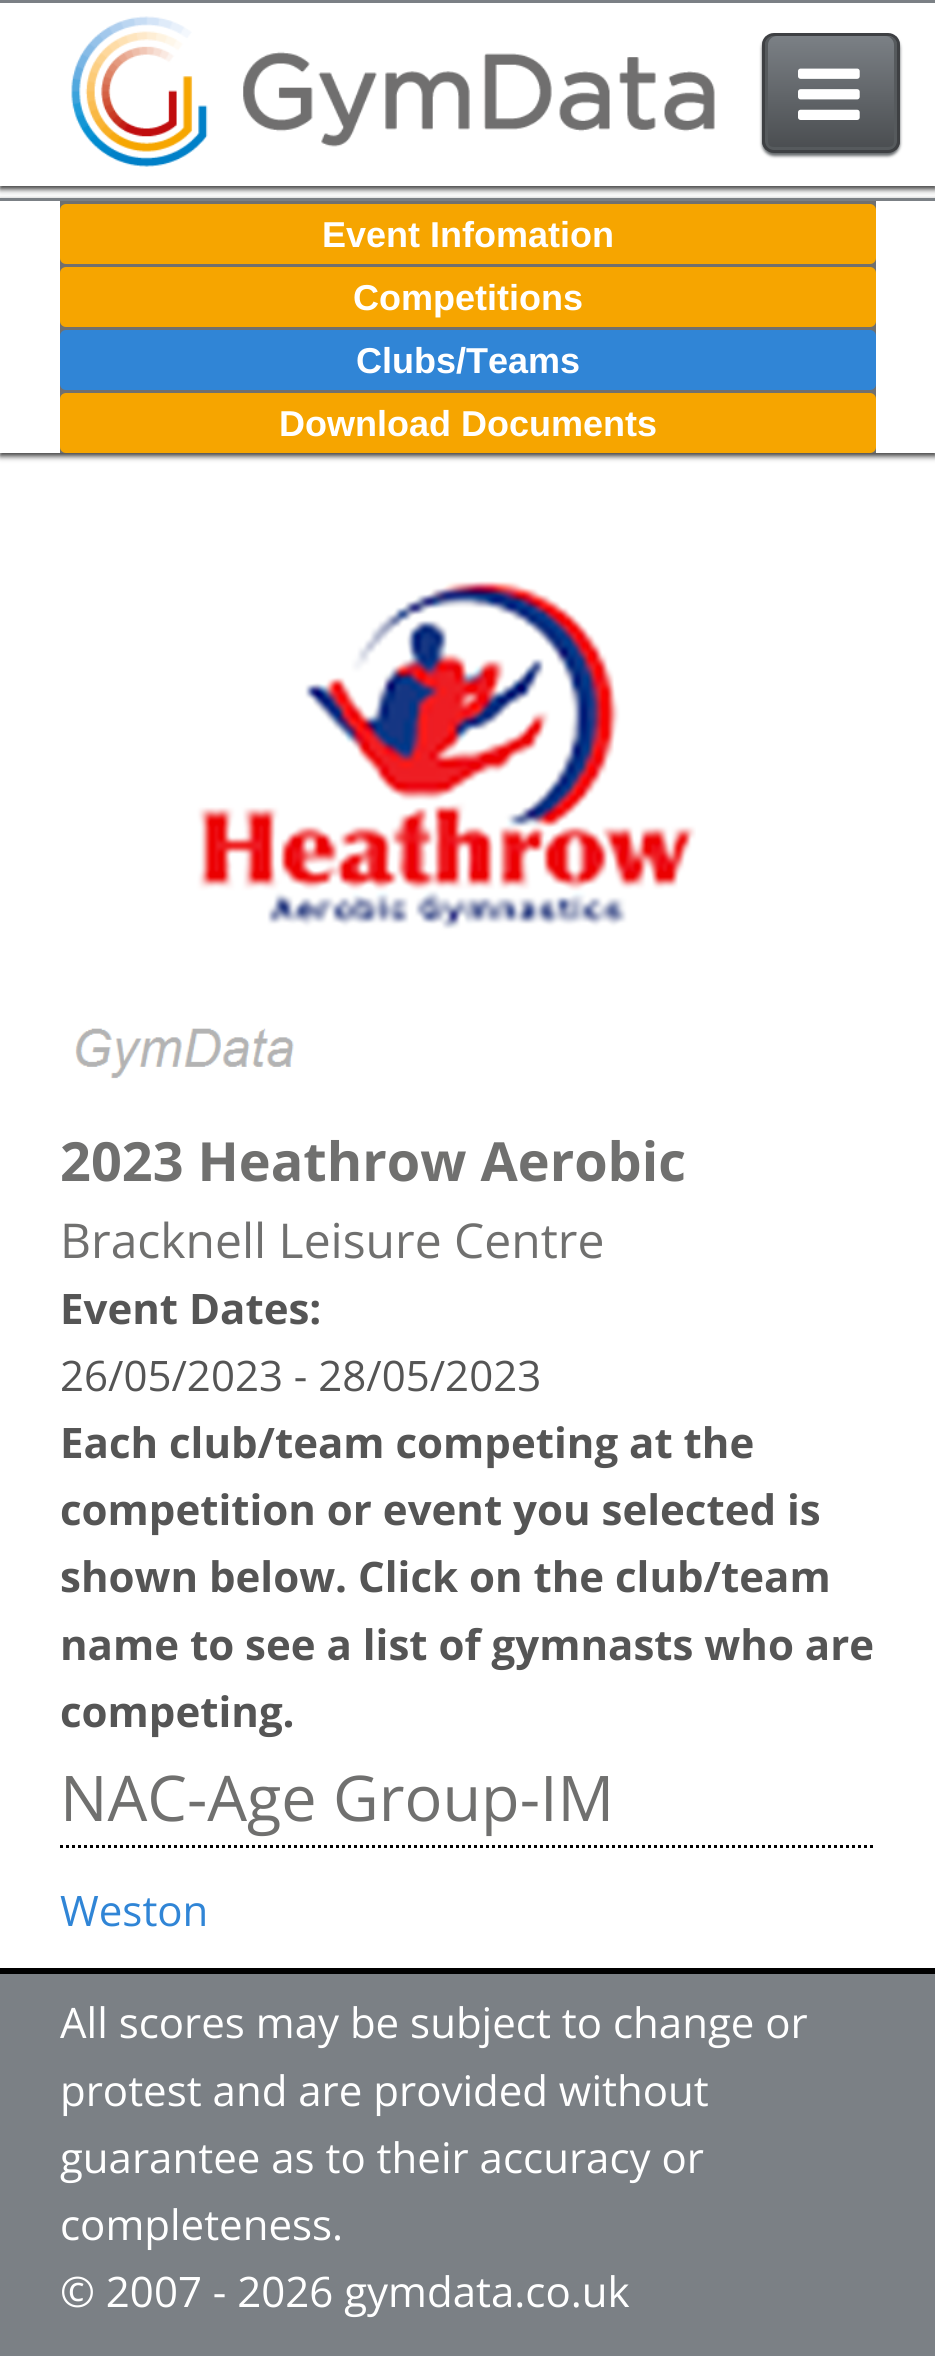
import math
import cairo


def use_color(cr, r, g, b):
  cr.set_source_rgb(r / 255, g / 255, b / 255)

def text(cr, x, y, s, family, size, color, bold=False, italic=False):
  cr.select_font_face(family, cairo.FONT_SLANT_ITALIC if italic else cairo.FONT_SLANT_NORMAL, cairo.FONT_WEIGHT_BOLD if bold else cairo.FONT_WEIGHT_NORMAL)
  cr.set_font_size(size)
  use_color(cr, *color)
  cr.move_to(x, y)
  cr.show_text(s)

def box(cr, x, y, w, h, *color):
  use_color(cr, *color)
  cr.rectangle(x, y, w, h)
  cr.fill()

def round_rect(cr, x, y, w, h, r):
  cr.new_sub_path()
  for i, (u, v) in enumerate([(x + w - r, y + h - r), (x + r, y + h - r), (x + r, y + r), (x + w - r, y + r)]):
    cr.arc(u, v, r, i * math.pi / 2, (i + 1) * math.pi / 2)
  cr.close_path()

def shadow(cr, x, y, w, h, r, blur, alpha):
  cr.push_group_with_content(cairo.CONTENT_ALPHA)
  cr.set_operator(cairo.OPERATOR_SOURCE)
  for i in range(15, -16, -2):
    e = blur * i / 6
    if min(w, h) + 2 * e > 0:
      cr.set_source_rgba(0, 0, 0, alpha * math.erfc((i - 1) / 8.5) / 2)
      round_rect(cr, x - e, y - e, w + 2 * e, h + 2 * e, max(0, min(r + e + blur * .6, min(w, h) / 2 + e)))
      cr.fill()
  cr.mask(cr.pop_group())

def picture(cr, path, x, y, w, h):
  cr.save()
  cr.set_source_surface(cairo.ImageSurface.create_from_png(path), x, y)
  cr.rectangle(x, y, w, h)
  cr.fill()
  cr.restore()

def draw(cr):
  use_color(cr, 255, 255, 255)
  cr.paint()
  cr.save()
  cr.rectangle(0, 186, 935, 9)
  cr.clip()
  use_color(cr, 0, 0, 0)
  shadow(cr, 0, 3, 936, 186, 0, 3, 0.8)
  cr.restore()
  box(cr, 0, 0, 935, 3, 123, 128, 133)
  picture(cr, "img_01.png", 71, 16, 644, 151)
  use_color(cr, 99, 103, 106)
  shadow(cr, 762, 36, 138, 120, 12, 1.5, 1)
  cr.save()
  round_rect(cr, 762, 33, 138, 120, 12)
  cr.clip()
  gradient = cairo.LinearGradient(831, 36, 831, 150)
  gradient.add_color_stop_rgba(0, 0.482, 0.502, 0.522, 1)
  gradient.add_color_stop_rgba(1, 0.29, 0.302, 0.314, 1)
  cr.set_source(gradient)
  cr.rectangle(762, 36, 138, 114)
  cr.fill()
  cr.restore()
  use_color(cr, 86, 90, 93)
  cr.new_path()
  cr.move_to(885, 150)
  cr.curve_to(901, 150, 897, 138, 897, 125)
  cr.line_to(897, 61)
  cr.curve_to(897, 48, 901, 36, 885, 36)
  cr.curve_to(890, 36, 894, 40, 894, 45)
  cr.line_to(894, 141)
  cr.curve_to(894, 146, 890, 150, 885, 150)
  cr.close_path()
  cr.fill()
  cr.new_path()
  cr.move_to(774, 36)
  cr.curve_to(769, 36, 765, 40, 765, 45)
  cr.line_to(765, 141)
  cr.curve_to(765, 146, 769, 150, 774, 150)
  cr.line_to(777, 150)
  cr.curve_to(772, 150, 768, 146, 768, 141)
  cr.line_to(768, 45)
  cr.curve_to(768, 40, 772, 36, 777, 36)
  cr.close_path()
  cr.fill()
  cr.new_path()
  cr.move_to(765, 138)
  cr.curve_to(765, 155, 779, 150, 793, 150)
  cr.line_to(869, 150)
  cr.curve_to(883, 150, 897, 155, 897, 138)
  cr.curve_to(897, 143, 893, 147, 888, 147)
  cr.line_to(774, 147)
  cr.curve_to(769, 147, 765, 143, 765, 138)
  cr.close_path()
  cr.fill()
  round_rect(cr, 763.5, 34.5, 135, 117, 10.5)
  use_color(cr, 62, 64, 67)
  cr.set_line_width(3)
  cr.stroke()
  picture(cr, "img_02.png", 798, 68, 62, 52)
  cr.save()
  cr.set_fill_rule(cairo.FILL_RULE_EVEN_ODD)
  cr.new_path()
  cr.move_to(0, 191)
  cr.line_to(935, 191)
  cr.line_to(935, 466)
  cr.line_to(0, 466)
  cr.close_path()
  cr.move_to(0, 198)
  cr.line_to(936, 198)
  cr.line_to(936, 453)
  cr.line_to(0, 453)
  cr.close_path()
  cr.clip()
  use_color(cr, 0, 0, 0)
  shadow(cr, 0, 201, 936, 255, 0, 3, 0.8)
  cr.restore()
  box(cr, 0, 198, 935, 3, 123, 128, 133)
  box(cr, 60, 201, 816, 252, 112, 112, 111)
  use_color(cr, 246, 165, 0)
  round_rect(cr, 60, 204, 816, 60, 6)
  cr.fill()
  round_rect(cr, 60, 267, 816, 60, 6)
  cr.fill()
  use_color(cr, 48, 133, 214)
  round_rect(cr, 60, 330, 816, 60, 6)
  cr.fill()
  use_color(cr, 246, 165, 0)
  round_rect(cr, 60, 393, 816, 60, 6)
  cr.fill()
  picture(cr, "img_03.png", 75, 581, 621, 498)
  cr.new_path()
  cr.move_to(60, 1846.5)
  cr.line_to(876, 1846.5)
  use_color(cr, 0, 0, 0)
  cr.set_dash([3, 3])
  cr.stroke()
  box(cr, 0, 1974, 935, 382, 123, 128, 133)
  box(cr, 0, 1968, 935, 6, 0, 0, 0)
  text(cr, 322, 247, "Event Infomation", "Liberation Sans", 36, (255, 255, 255), bold=True)
  text(cr, 353, 310, "Competitions", "Liberation Sans", 36, (255, 255, 255), bold=True)
  text(cr, 356, 373, "Clubs/Teams", "Liberation Sans", 36, (255, 255, 255), bold=True)
  text(cr, 279, 436, "Download Documents", "Liberation Sans", 36, (255, 255, 255), bold=True)
  text(cr, 60, 1181, "2023 Heathrow Aerobic", "Open Sans", 54, (112, 112, 111), bold=True)
  text(cr, 60, 1258, "Bracknell Leisure Centre", "Open Sans", 48, (112, 112, 111))
  text(cr, 60, 1324, "Event Dates:", "Open Sans", 42, (85, 85, 85), bold=True)
  text(cr, 60, 1391, "26/05/2023 - 28/05/2023", "Open Sans", 42, (85, 85, 85))
  text(cr, 60, 1458, "Each club/team competing at the", "Open Sans", 42, (85, 85, 85), bold=True)
  text(cr, 60, 1525, "competition or event you selected is", "Open Sans", 42, (85, 85, 85), bold=True)
  text(cr, 60, 1592, "shown below. Click on the club/team", "Open Sans", 42, (85, 85, 85), bold=True)
  text(cr, 60, 1660, "name to see a list of gymnasts who are", "Open Sans", 42, (85, 85, 85), bold=True)
  text(cr, 60, 1727, "competing.", "Open Sans", 42, (85, 85, 85), bold=True)
  text(cr, 60, 1821, "NAC-Age Group-IM", "Open Sans", 63, (112, 112, 111))
  text(cr, 60, 1926, "Weston", "Open Sans", 42, (48, 133, 214))
  text(cr, 60, 2038, "All scores may be subject to change or", "Open Sans", 42, (255, 255, 255))
  text(cr, 60, 2106, "protest and are provided without", "Open Sans", 42, (255, 255, 255))
  text(cr, 60, 2173, "guarantee as to their accuracy or", "Open Sans", 42, (255, 255, 255))
  text(cr, 60, 2240, "completeness.", "Open Sans", 42, (255, 255, 255))
  text(cr, 60, 2307, "© 2007 - 2026 gymdata.co.uk", "Open Sans", 42, (255, 255, 255))


surface = cairo.ImageSurface(cairo.FORMAT_RGB24, 935, 2356)
cr = cairo.Context(surface)
options = cairo.FontOptions()
options.set_hint_metrics(cairo.HINT_METRICS_OFF)
options.set_hint_style(cairo.HINT_STYLE_NONE)
cr.set_font_options(options)
cr.set_miter_limit(4)
draw(cr)
surface.write_to_png("out.png")
